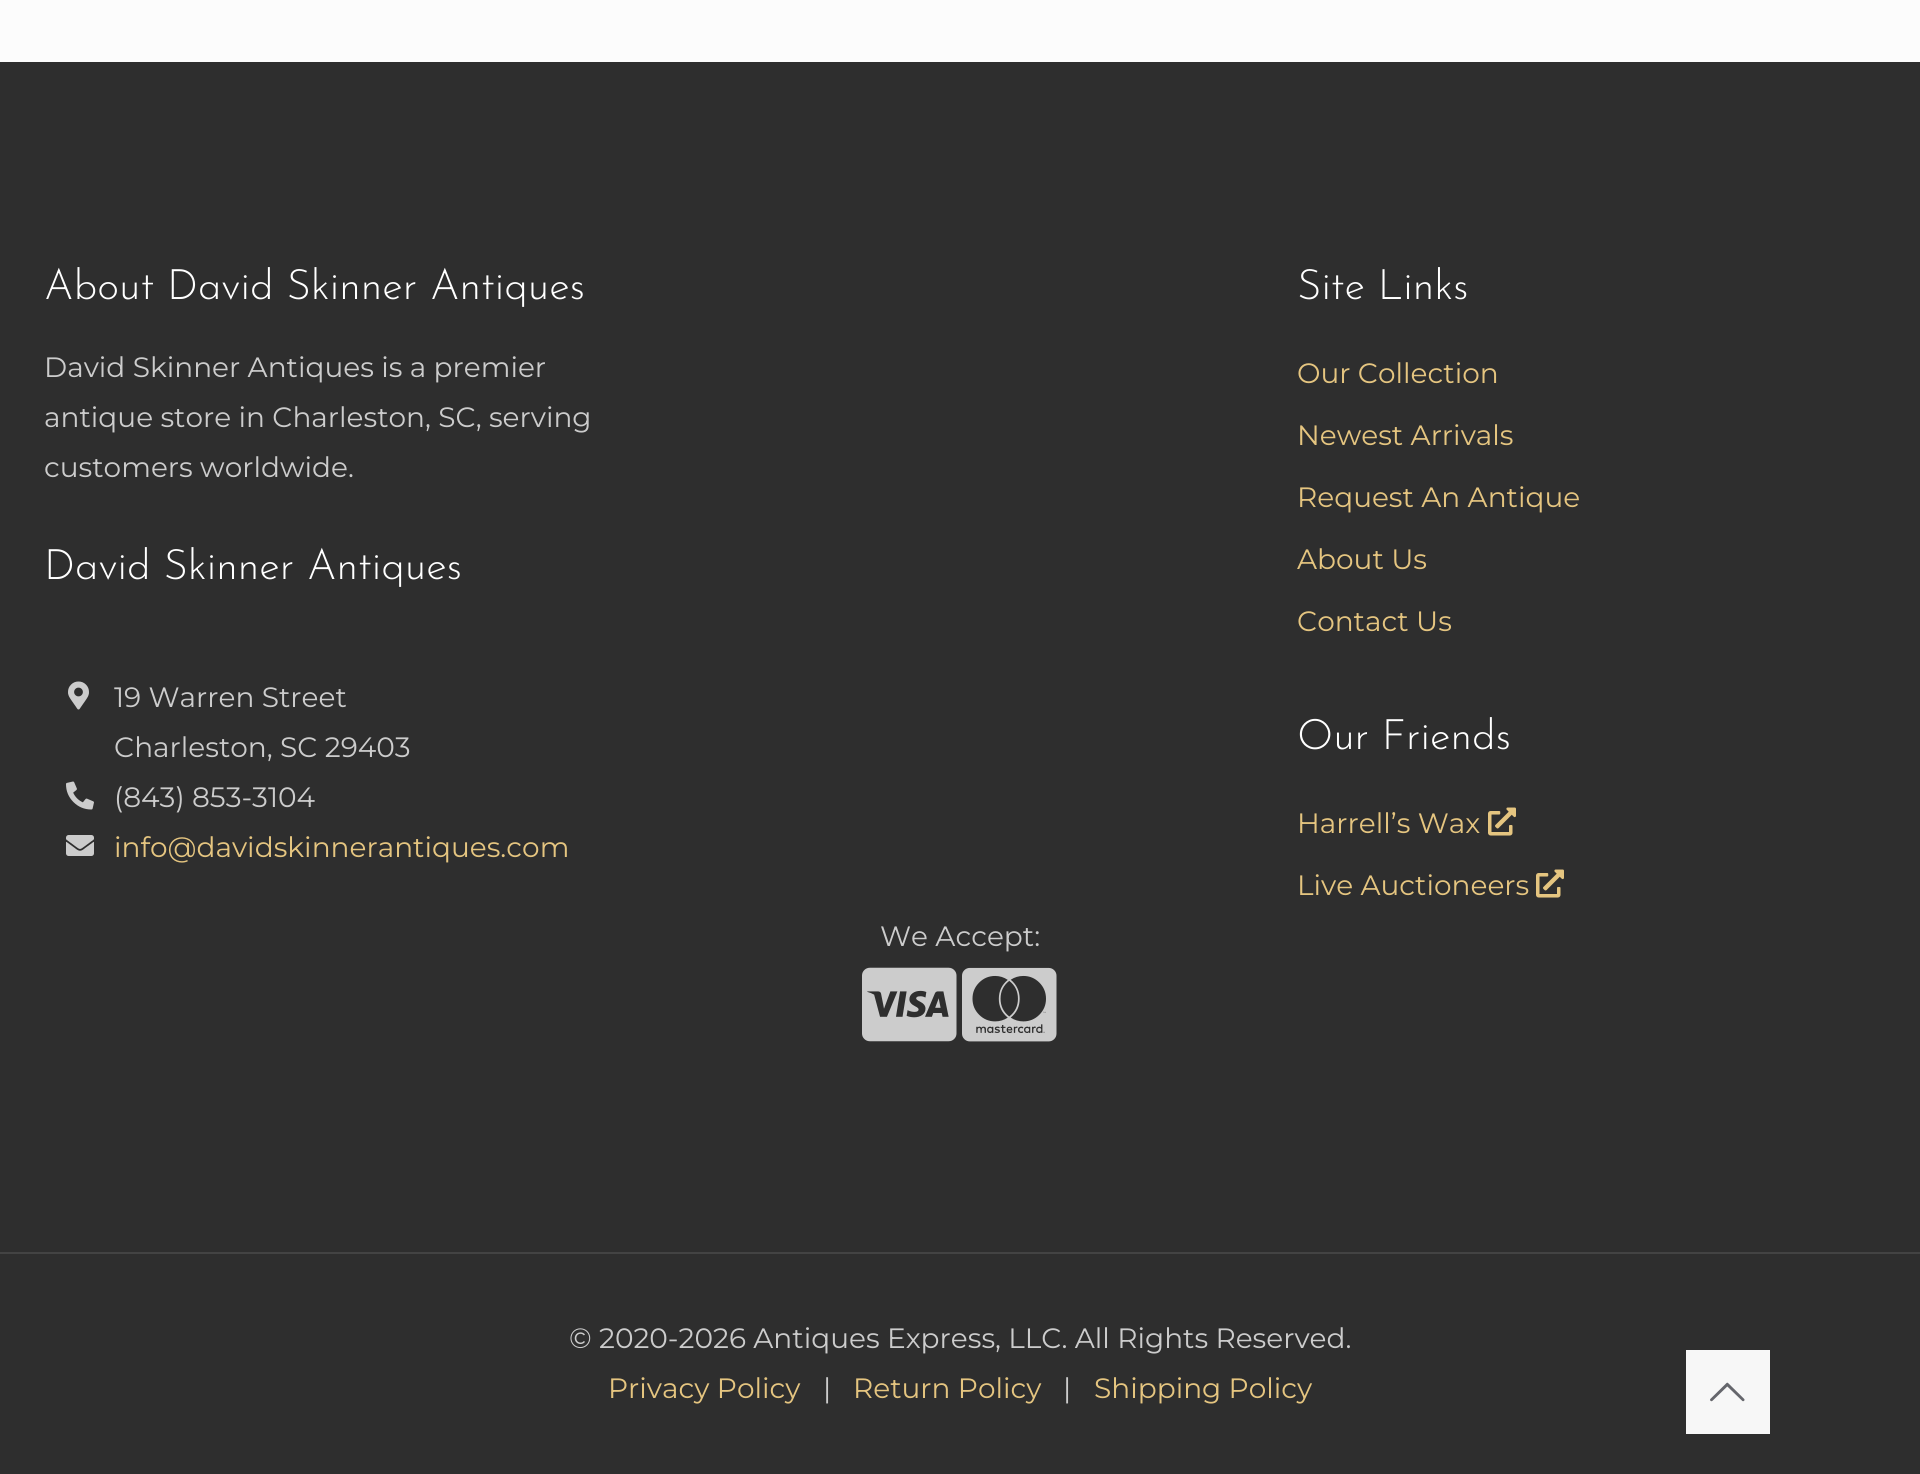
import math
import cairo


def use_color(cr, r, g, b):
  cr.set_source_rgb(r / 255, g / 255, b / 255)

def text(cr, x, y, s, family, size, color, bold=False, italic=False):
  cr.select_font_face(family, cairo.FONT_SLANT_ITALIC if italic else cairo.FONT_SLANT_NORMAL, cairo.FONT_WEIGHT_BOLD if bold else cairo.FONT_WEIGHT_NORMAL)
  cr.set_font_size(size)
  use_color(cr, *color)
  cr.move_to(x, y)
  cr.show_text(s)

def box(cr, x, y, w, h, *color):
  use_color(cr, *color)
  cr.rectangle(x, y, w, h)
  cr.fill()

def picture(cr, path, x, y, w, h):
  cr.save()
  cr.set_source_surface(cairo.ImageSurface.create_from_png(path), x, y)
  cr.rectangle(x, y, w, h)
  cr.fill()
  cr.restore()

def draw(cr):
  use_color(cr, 252, 252, 252)
  cr.paint()
  box(cr, 0, 62, 1920, 1412, 46, 46, 46)
  picture(cr, "img_01.png", 68, 681, 21, 29)
  picture(cr, "img_02.png", 66, 781, 28, 29)
  picture(cr, "img_03.png", 66, 835, 28, 21)
  picture(cr, "img_04.png", 1488, 807, 28, 29)
  picture(cr, "img_04.png", 1536, 869, 28, 29)
  picture(cr, "img_05.png", 862, 967, 95, 75)
  picture(cr, "img_06.png", 962, 967, 95, 75)
  box(cr, 0, 1252, 1920, 2, 67, 67, 67)
  box(cr, 1686, 1350, 84, 84, 247, 247, 247)
  picture(cr, "img_07.png", 1710, 1382, 35, 20)
  text(cr, 44, 299, "About David Skinner Antiques", "Josefin Sans Thin", 42, (255, 255, 255))
  text(cr, 44, 377, "David Skinner Antiques is a premier", "Montserrat Thin", 28, (204, 204, 204))
  text(cr, 44, 427, "antique store in Charleston, SC, serving", "Montserrat Thin", 28, (204, 204, 204))
  text(cr, 44, 477, "customers worldwide.", "Montserrat Thin", 28, (204, 204, 204))
  text(cr, 44, 579, "David Skinner Antiques", "Josefin Sans Thin", 42, (255, 255, 255))
  text(cr, 114, 707, "19 Warren Street", "Montserrat Thin", 28, (204, 204, 204))
  text(cr, 114, 757, "Charleston, SC 29403", "Montserrat Thin", 28, (204, 204, 204))
  text(cr, 114, 807, "(843) 853-3104", "Montserrat Thin", 28, (204, 204, 204))
  text(cr, 114, 857, "info@davidskinnerantiques.com", "Montserrat Thin", 28, (229, 197, 128))
  text(cr, 1297, 299, "Site Links", "Josefin Sans Thin", 42, (255, 255, 255))
  text(cr, 1297, 383, "Our Collection", "Montserrat Thin", 28, (229, 197, 128))
  text(cr, 1297, 445, "Newest Arrivals", "Montserrat Thin", 28, (229, 197, 128))
  text(cr, 1297, 507, "Request An Antique", "Montserrat Thin", 28, (229, 197, 128))
  text(cr, 1297, 569, "About Us", "Montserrat Thin", 28, (229, 197, 128))
  text(cr, 1297, 631, "Contact Us", "Montserrat Thin", 28, (229, 197, 128))
  text(cr, 1297, 749, "Our Friends", "Josefin Sans Thin", 42, (255, 255, 255))
  text(cr, 1297, 833, "Harrell’s Wax", "Montserrat Thin", 28, (229, 197, 128))
  text(cr, 1297, 895, "Live Auctioneers", "Montserrat Thin", 28, (229, 197, 128))
  text(cr, 880, 946, "We Accept:", "Montserrat Thin", 28, (204, 204, 204))
  text(cr, 569, 1348, "© 2020-2026 Antiques Express, LLC. All Rights Reserved.", "Montserrat Thin", 28, (204, 204, 204))
  text(cr, 608, 1398, "Privacy Policy", "Montserrat Thin", 28, (229, 197, 128))
  text(cr, 823, 1398, "|", "Montserrat Thin", 28, (204, 204, 204))
  text(cr, 853, 1398, "Return Policy", "Montserrat Thin", 28, (229, 197, 128))
  text(cr, 1063, 1398, "|", "Montserrat Thin", 28, (204, 204, 204))
  text(cr, 1094, 1398, "Shipping Policy", "Montserrat Thin", 28, (229, 197, 128))


surface = cairo.ImageSurface(cairo.FORMAT_RGB24, 1920, 1474)
cr = cairo.Context(surface)
options = cairo.FontOptions()
options.set_hint_metrics(cairo.HINT_METRICS_OFF)
options.set_hint_style(cairo.HINT_STYLE_NONE)
cr.set_font_options(options)
cr.set_miter_limit(4)
draw(cr)
surface.write_to_png("out.png")
